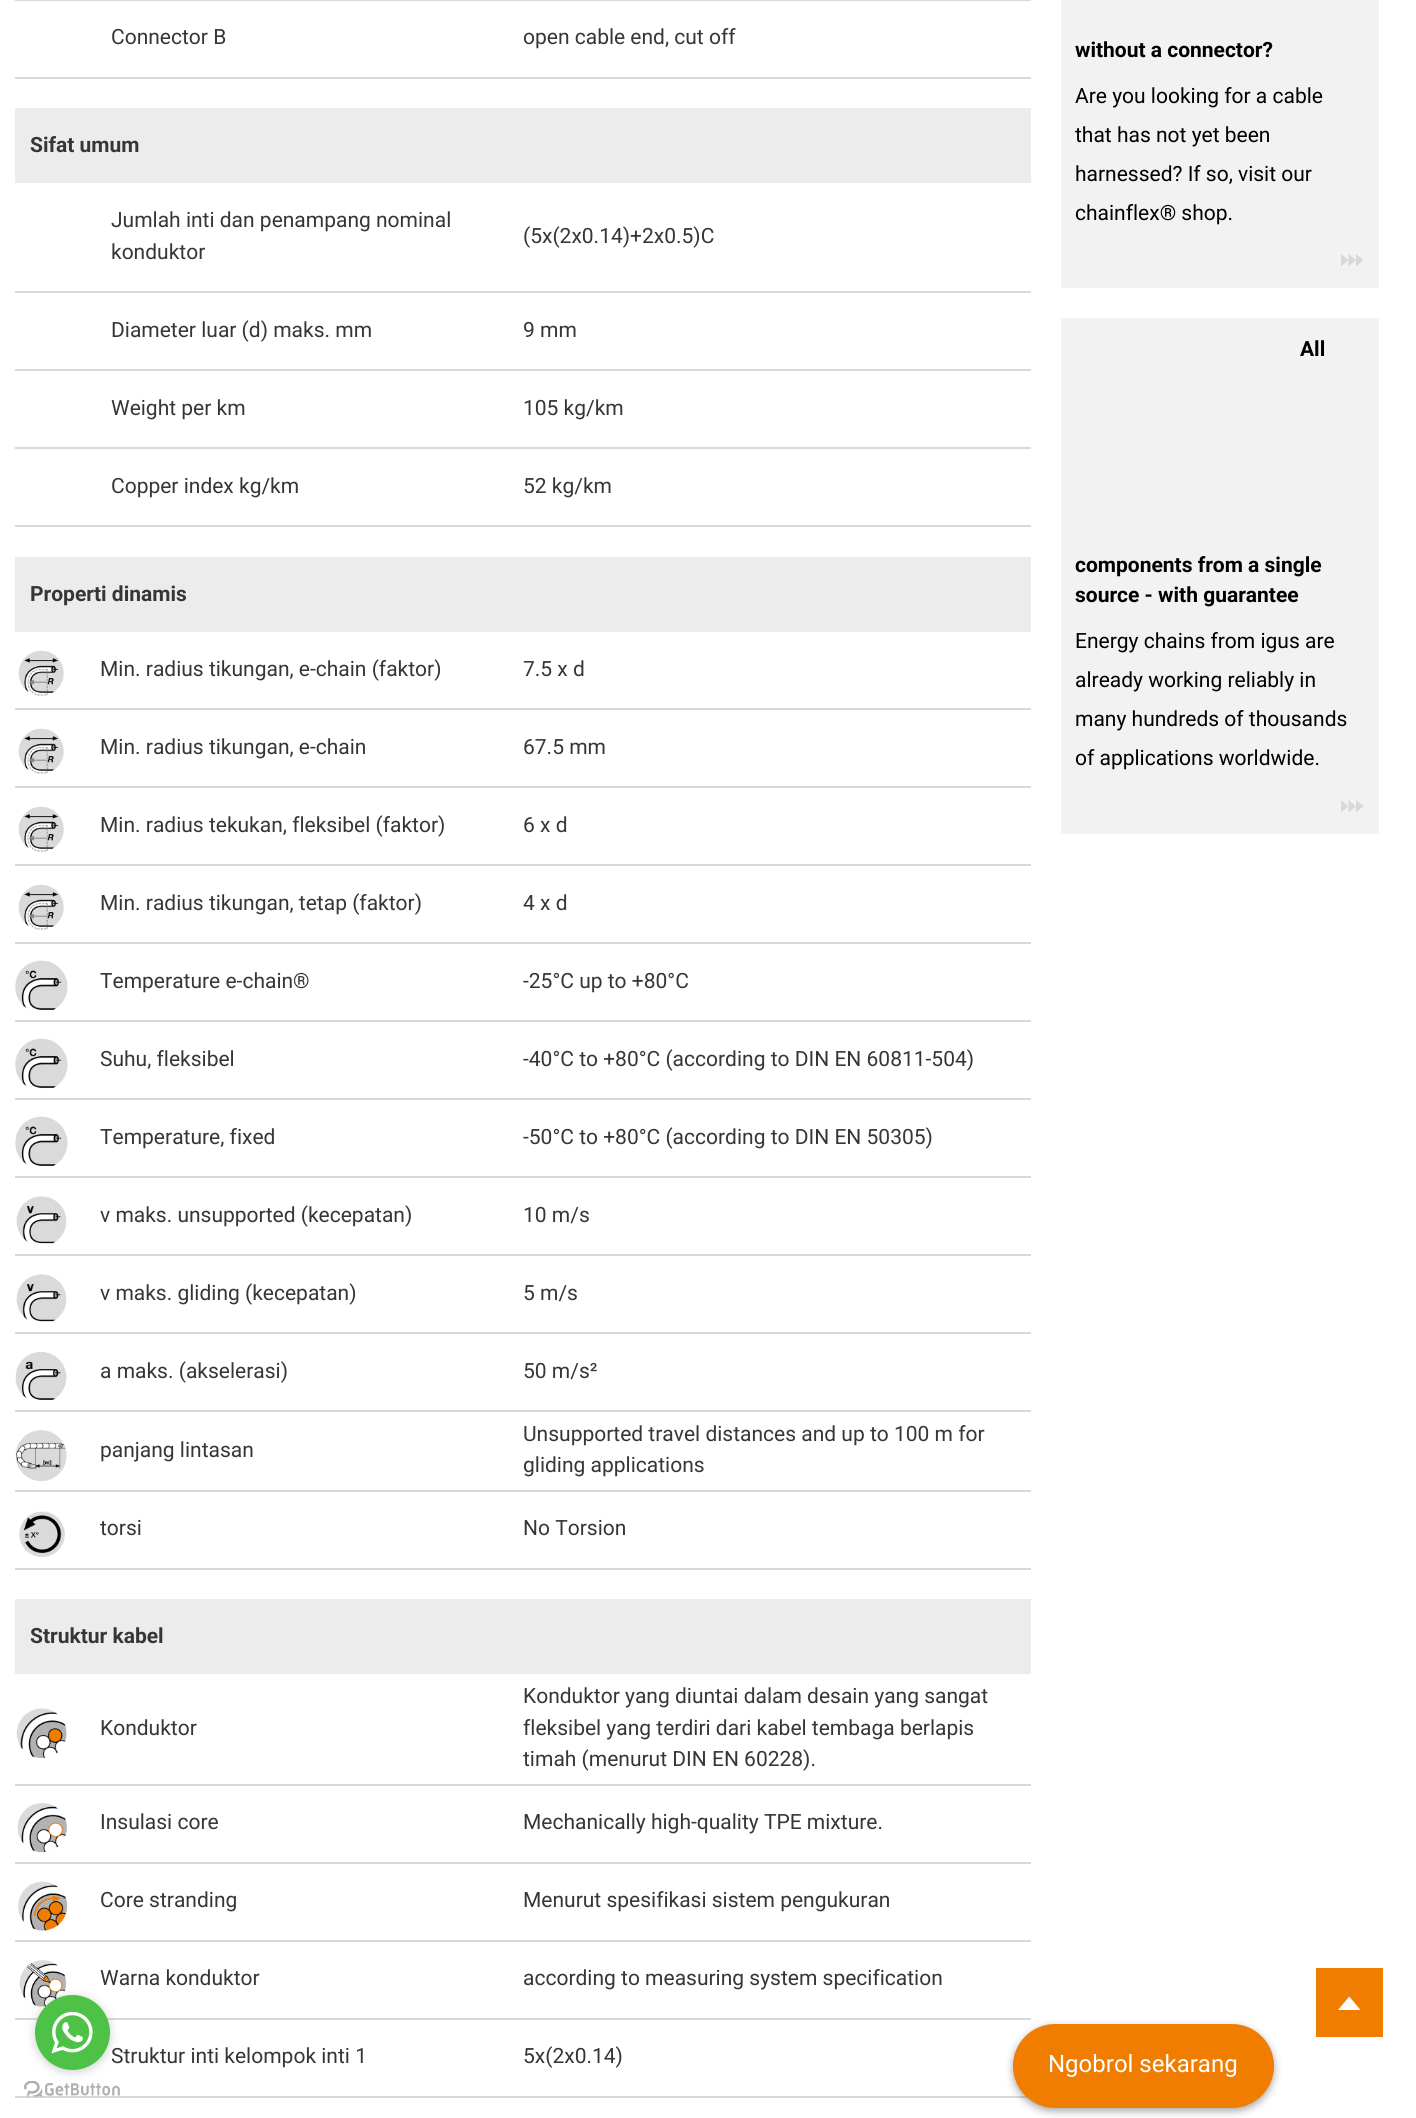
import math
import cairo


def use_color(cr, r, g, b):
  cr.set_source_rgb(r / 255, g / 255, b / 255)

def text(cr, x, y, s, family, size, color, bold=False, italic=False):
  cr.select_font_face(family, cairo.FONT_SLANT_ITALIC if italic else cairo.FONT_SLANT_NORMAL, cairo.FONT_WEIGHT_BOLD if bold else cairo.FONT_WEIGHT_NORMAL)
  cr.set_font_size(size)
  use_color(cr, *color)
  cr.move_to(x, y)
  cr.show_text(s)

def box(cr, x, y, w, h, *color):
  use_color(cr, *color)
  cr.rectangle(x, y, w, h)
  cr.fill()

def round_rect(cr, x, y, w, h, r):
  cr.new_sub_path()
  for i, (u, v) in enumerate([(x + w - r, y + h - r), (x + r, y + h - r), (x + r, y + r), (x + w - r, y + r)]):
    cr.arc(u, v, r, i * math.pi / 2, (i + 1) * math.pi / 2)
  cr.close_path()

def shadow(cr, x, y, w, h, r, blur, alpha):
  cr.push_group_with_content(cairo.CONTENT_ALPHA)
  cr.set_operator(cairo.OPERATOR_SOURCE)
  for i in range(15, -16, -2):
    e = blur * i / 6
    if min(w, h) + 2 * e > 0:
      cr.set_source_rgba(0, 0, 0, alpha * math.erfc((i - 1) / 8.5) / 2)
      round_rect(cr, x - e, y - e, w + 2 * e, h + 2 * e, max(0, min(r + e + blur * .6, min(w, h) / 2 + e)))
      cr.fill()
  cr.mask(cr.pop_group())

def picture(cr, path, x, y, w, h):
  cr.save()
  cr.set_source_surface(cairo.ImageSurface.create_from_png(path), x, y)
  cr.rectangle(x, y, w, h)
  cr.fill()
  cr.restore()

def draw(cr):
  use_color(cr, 255, 255, 255)
  cr.paint()
  box(cr, 15, 0, 1016, 1, 216, 216, 216)
  box(cr, 15, 77, 1016, 2, 216, 216, 216)
  box(cr, 15, 108, 1016, 75, 236, 236, 236)
  box(cr, 15, 291, 1016, 2, 216, 216, 216)
  box(cr, 15, 369, 1016, 2, 216, 216, 216)
  box(cr, 15, 447, 1016, 2, 216, 216, 216)
  box(cr, 15, 525, 1016, 2, 216, 216, 216)
  box(cr, 15, 557, 1016, 75, 236, 236, 236)
  box(cr, 15, 708, 1016, 2, 216, 216, 216)
  picture(cr, "img_01.png", 18, 650, 46, 46)
  box(cr, 15, 786, 1016, 2, 216, 216, 216)
  picture(cr, "img_01.png", 18, 728, 46, 46)
  box(cr, 15, 864, 1016, 2, 216, 216, 216)
  picture(cr, "img_01.png", 18, 806, 46, 46)
  box(cr, 15, 942, 1016, 2, 216, 216, 216)
  picture(cr, "img_01.png", 18, 884, 46, 46)
  box(cr, 15, 1020, 1016, 2, 216, 216, 216)
  picture(cr, "img_02.png", 15, 960, 53, 51)
  box(cr, 15, 1098, 1016, 2, 216, 216, 216)
  picture(cr, "img_02.png", 15, 1038, 53, 51)
  box(cr, 15, 1176, 1016, 2, 216, 216, 216)
  picture(cr, "img_02.png", 15, 1116, 53, 51)
  box(cr, 15, 1254, 1016, 2, 216, 216, 216)
  picture(cr, "img_03.png", 16, 1196, 51, 48)
  box(cr, 15, 1332, 1016, 2, 216, 216, 216)
  picture(cr, "img_03.png", 16, 1274, 51, 48)
  box(cr, 15, 1410, 1016, 2, 216, 216, 216)
  picture(cr, "img_04.png", 15, 1351, 52, 49)
  box(cr, 15, 1490, 1016, 2, 216, 216, 216)
  picture(cr, "img_05.png", 15, 1430, 52, 52)
  box(cr, 15, 1568, 1016, 2, 216, 216, 216)
  picture(cr, "img_06.png", 19, 1511, 46, 46)
  box(cr, 15, 1599, 1016, 75, 236, 236, 236)
  box(cr, 15, 1784, 1016, 2, 216, 216, 216)
  picture(cr, "img_07.png", 16, 1708, 51, 50)
  box(cr, 15, 1862, 1016, 2, 216, 216, 216)
  picture(cr, "img_08.png", 17, 1803, 50, 50)
  box(cr, 15, 1940, 1016, 2, 216, 216, 216)
  picture(cr, "img_09.png", 18, 1881, 50, 51)
  box(cr, 15, 2018, 1016, 2, 216, 216, 216)
  picture(cr, "img_10.png", 19, 1960, 47, 47)
  box(cr, 15, 2096, 1016, 2, 216, 216, 216)
  box(cr, 1061, 0, 318, 288, 242, 242, 242)
  picture(cr, "img_11.png", 1341, 254, 22, 13)
  box(cr, 1061, 318, 318, 516, 242, 242, 242)
  picture(cr, "img_11.png", 1341, 800, 22, 13)
  box(cr, 1316, 1968, 67, 69, 240, 125, 0)
  picture(cr, "img_12.png", 1338, 1996, 23, 14)
  picture(cr, "img_14.png", 24, 2081, 96, 16)
  use_color(cr, 136, 136, 136)
  shadow(cr, 35, 1997, 75, 75, 37.5, 5, 0.4)
  use_color(cr, 77, 194, 71)
  cr.arc(72.5, 2032.5, 37.5, 0, 2 * math.pi)
  cr.fill()
  picture(cr, "img_13.png", 51, 2011, 42, 43)
  use_color(cr, 0, 0, 0)
  shadow(cr, 1013, 2027, 261, 84, 42, 4, 0.35)
  use_color(cr, 240, 125, 0)
  round_rect(cr, 1013, 2024, 261, 84, 42)
  cr.fill()
  text(cr, 111, 44, "Connector B", "Roboto", 21, (54, 54, 54))
  text(cr, 523, 44, "open cable end, cut off", "Roboto", 21, (54, 54, 54))
  text(cr, 30, 152, "Sifat umum", "Roboto", 21, (54, 54, 54), bold=True)
  text(cr, 111, 227, "Jumlah inti dan penampang nominal", "Roboto", 21, (54, 54, 54))
  text(cr, 111, 259, "konduktor", "Roboto", 21, (54, 54, 54))
  text(cr, 523, 243, "(5x(2x0.14)+2x0.5)C", "Roboto", 21, (54, 54, 54))
  text(cr, 111, 337, "Diameter luar (d) maks. mm", "Roboto", 21, (54, 54, 54))
  text(cr, 523, 337, "9 mm", "Roboto", 21, (54, 54, 54))
  text(cr, 111, 415, "Weight per km", "Roboto", 21, (54, 54, 54))
  text(cr, 523, 415, "105 kg/km", "Roboto", 21, (54, 54, 54))
  text(cr, 111, 493, "Copper index kg/km", "Roboto", 21, (54, 54, 54))
  text(cr, 523, 493, "52 kg/km", "Roboto", 21, (54, 54, 54))
  text(cr, 30, 601, "Properti dinamis", "Roboto", 21, (54, 54, 54), bold=True)
  text(cr, 100, 676, "Min. radius tikungan, e-chain (faktor)", "Roboto", 21, (54, 54, 54))
  text(cr, 523, 676, "7.5 x d", "Roboto", 21, (54, 54, 54))
  text(cr, 100, 754, "Min. radius tikungan, e-chain", "Roboto", 21, (54, 54, 54))
  text(cr, 523, 754, "67.5 mm", "Roboto", 21, (54, 54, 54))
  text(cr, 100, 832, "Min. radius tekukan, fleksibel (faktor)", "Roboto", 21, (54, 54, 54))
  text(cr, 523, 832, "6 x d", "Roboto", 21, (54, 54, 54))
  text(cr, 100, 910, "Min. radius tikungan, tetap (faktor)", "Roboto", 21, (54, 54, 54))
  text(cr, 523, 910, "4 x d", "Roboto", 21, (54, 54, 54))
  text(cr, 100, 988, "Temperature e-chain®", "Roboto", 21, (54, 54, 54))
  text(cr, 523, 988, "-25°C up to +80°C", "Roboto", 21, (54, 54, 54))
  text(cr, 100, 1066, "Suhu, fleksibel", "Roboto", 21, (54, 54, 54))
  text(cr, 523, 1066, "-40°C to +80°C (according to DIN EN 60811-504)", "Roboto", 21, (54, 54, 54))
  text(cr, 100, 1144, "Temperature, fixed", "Roboto", 21, (54, 54, 54))
  text(cr, 523, 1144, "-50°C to +80°C (according to DIN EN 50305)", "Roboto", 21, (54, 54, 54))
  text(cr, 100, 1222, "v maks. unsupported (kecepatan)", "Roboto", 21, (54, 54, 54))
  text(cr, 523, 1222, "10 m/s", "Roboto", 21, (54, 54, 54))
  text(cr, 100, 1300, "v maks. gliding (kecepatan)", "Roboto", 21, (54, 54, 54))
  text(cr, 523, 1300, "5 m/s", "Roboto", 21, (54, 54, 54))
  text(cr, 100, 1378, "a maks. (akselerasi)", "Roboto", 21, (54, 54, 54))
  text(cr, 523, 1378, "50 m/s²", "Roboto", 21, (54, 54, 54))
  text(cr, 100, 1457, "panjang lintasan", "Roboto", 21, (54, 54, 54))
  text(cr, 523, 1441, "Unsupported travel distances and up to 100 m for", "Roboto", 21, (54, 54, 54))
  text(cr, 523, 1472, "gliding applications", "Roboto", 21, (54, 54, 54))
  text(cr, 100, 1535, "torsi", "Roboto", 21, (54, 54, 54))
  text(cr, 523, 1535, "No Torsion", "Roboto", 21, (54, 54, 54))
  text(cr, 30, 1643, "Struktur kabel", "Roboto", 21, (54, 54, 54), bold=True)
  text(cr, 100, 1735, "Konduktor", "Roboto", 21, (54, 54, 54))
  text(cr, 523, 1703, "Konduktor yang diuntai dalam desain yang sangat", "Roboto", 21, (54, 54, 54))
  text(cr, 523, 1735, "fleksibel yang terdiri dari kabel tembaga berlapis", "Roboto", 21, (54, 54, 54))
  text(cr, 523, 1766, "timah (menurut DIN EN 60228).", "Roboto", 21, (54, 54, 54))
  text(cr, 100, 1829, "Insulasi core", "Roboto", 21, (54, 54, 54))
  text(cr, 523, 1829, "Mechanically high-quality TPE mixture.", "Roboto", 21, (54, 54, 54))
  text(cr, 100, 1907, "Core stranding", "Roboto", 21, (54, 54, 54))
  text(cr, 523, 1907, "Menurut spesifikasi sistem pengukuran", "Roboto", 21, (54, 54, 54))
  text(cr, 100, 1985, "Warna konduktor", "Roboto", 21, (54, 54, 54))
  text(cr, 523, 1985, "according to measuring system specification", "Roboto", 21, (54, 54, 54))
  text(cr, 111, 2063, "Struktur inti kelompok inti 1", "Roboto", 21, (54, 54, 54))
  text(cr, 523, 2063, "5x(2x0.14)", "Roboto", 21, (54, 54, 54))
  text(cr, 1075, 57, "without a connector?", "Roboto", 21, (0, 0, 0), bold=True)
  text(cr, 1075, 103, "Are you looking for a cable", "Roboto", 21, (0, 0, 0))
  text(cr, 1075, 142, "that has not yet been", "Roboto", 21, (0, 0, 0))
  text(cr, 1075, 181, "harnessed? If so, visit our", "Roboto", 21, (0, 0, 0))
  text(cr, 1075, 220, "chainflex® shop.", "Roboto", 21, (0, 0, 0))
  text(cr, 1300, 356, "All", "Roboto", 21, (0, 0, 0), bold=True)
  text(cr, 1075, 572, "components from a single", "Roboto", 21, (0, 0, 0), bold=True)
  text(cr, 1075, 602, "source - with guarantee", "Roboto", 21, (0, 0, 0), bold=True)
  text(cr, 1075, 648, "Energy chains from igus are", "Roboto", 21, (0, 0, 0))
  text(cr, 1075, 687, "already working reliably in", "Roboto", 21, (0, 0, 0))
  text(cr, 1075, 726, "many hundreds of thousands", "Roboto", 21, (0, 0, 0))
  text(cr, 1075, 765, "of applications worldwide.", "Roboto", 21, (0, 0, 0))
  text(cr, 1048, 2072, "Ngobrol sekarang", "Roboto", 24, (255, 255, 255))


surface = cairo.ImageSurface(cairo.FORMAT_RGB24, 1416, 2118)
cr = cairo.Context(surface)
options = cairo.FontOptions()
options.set_hint_metrics(cairo.HINT_METRICS_OFF)
options.set_hint_style(cairo.HINT_STYLE_NONE)
cr.set_font_options(options)
cr.set_miter_limit(4)
draw(cr)
surface.write_to_png("out.png")
